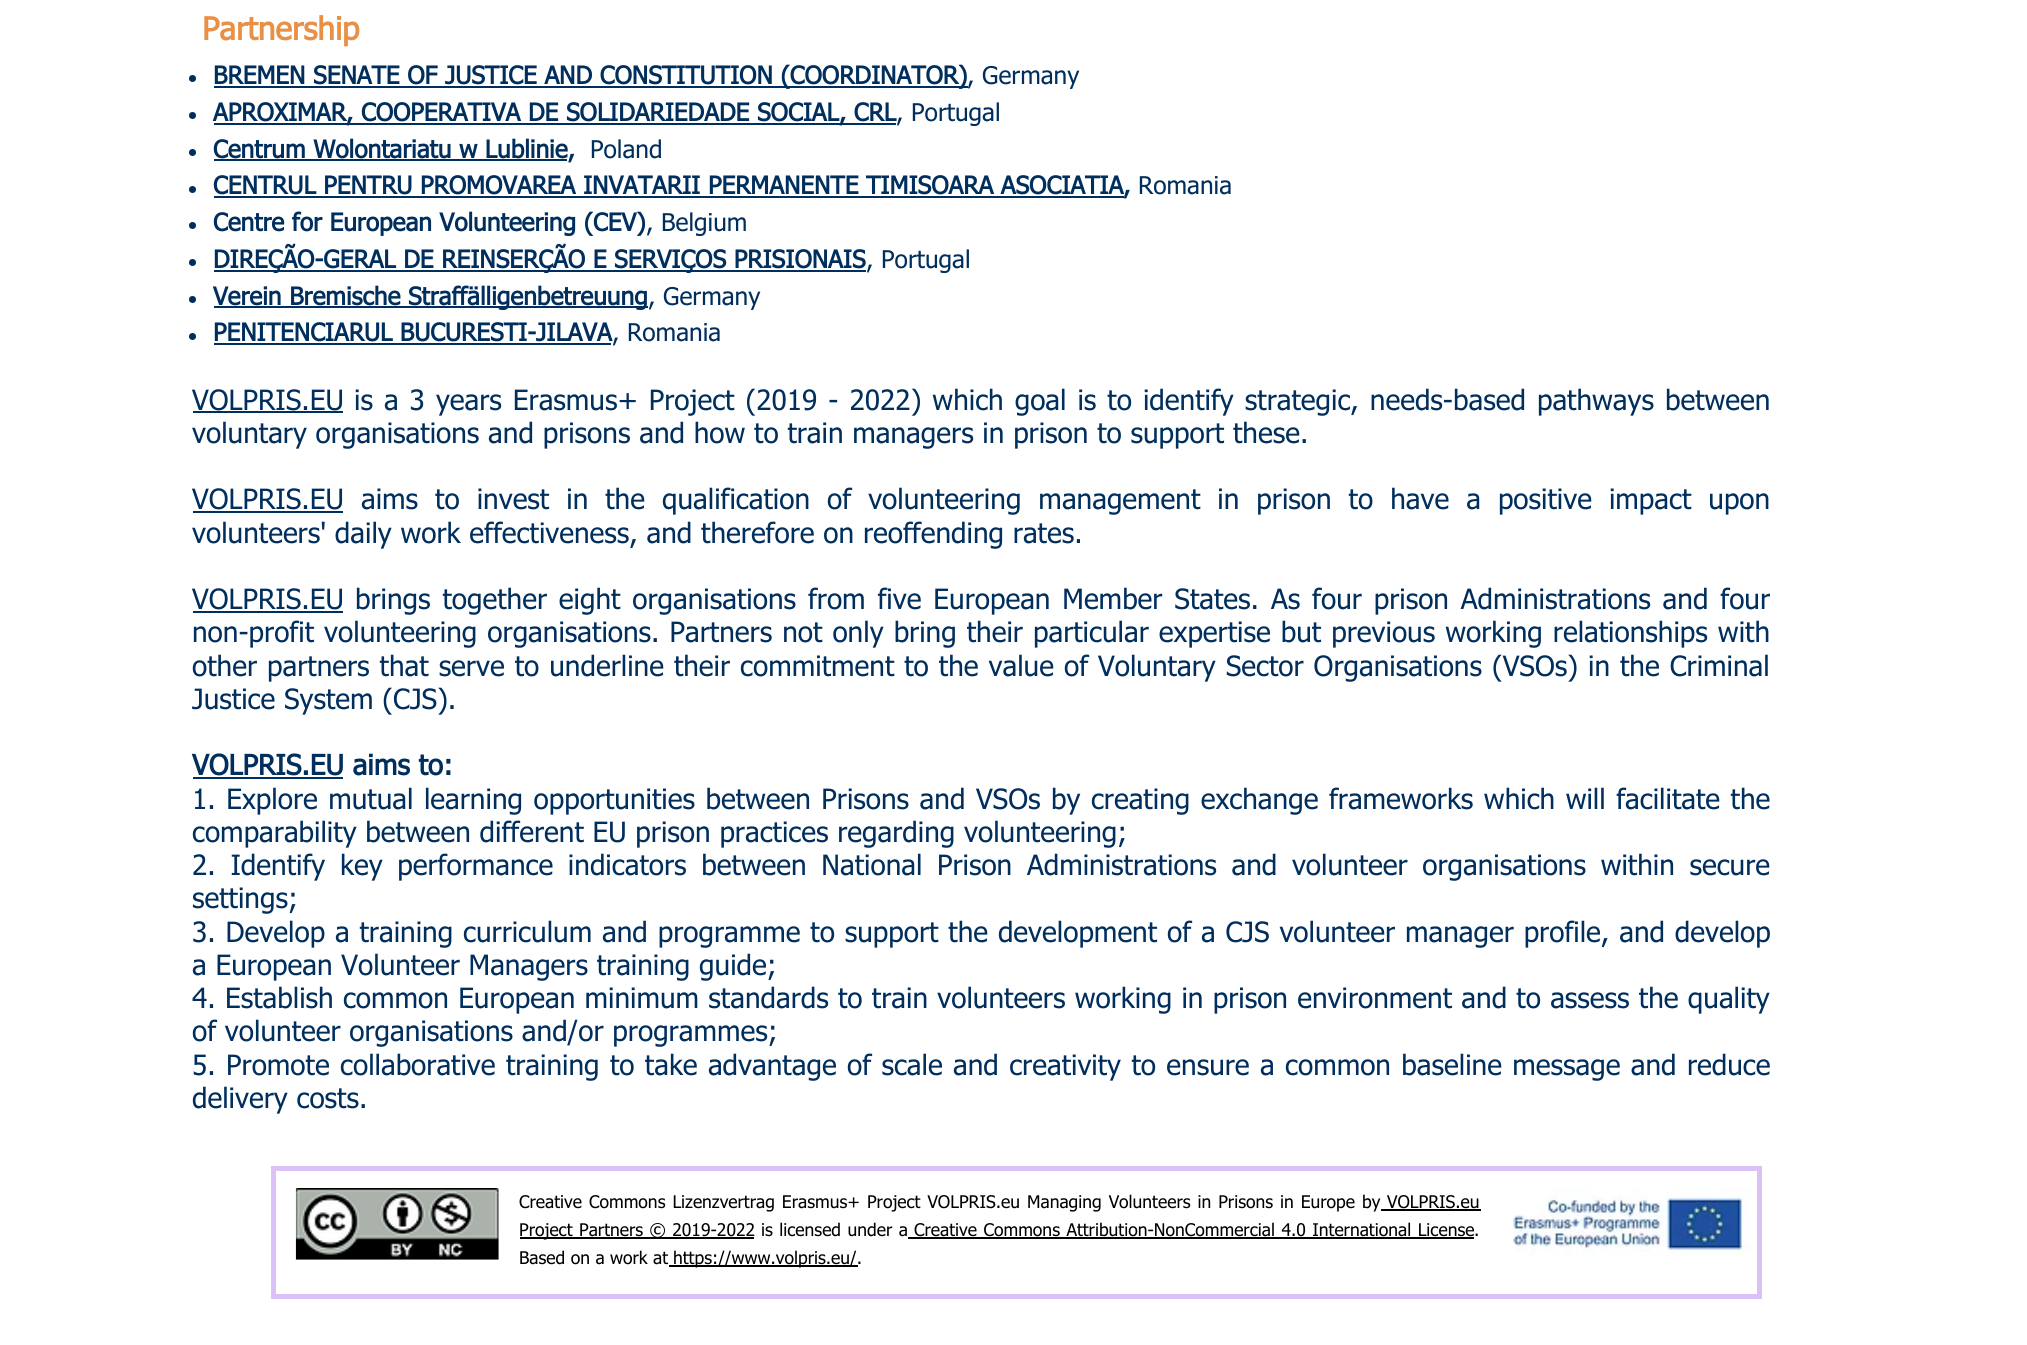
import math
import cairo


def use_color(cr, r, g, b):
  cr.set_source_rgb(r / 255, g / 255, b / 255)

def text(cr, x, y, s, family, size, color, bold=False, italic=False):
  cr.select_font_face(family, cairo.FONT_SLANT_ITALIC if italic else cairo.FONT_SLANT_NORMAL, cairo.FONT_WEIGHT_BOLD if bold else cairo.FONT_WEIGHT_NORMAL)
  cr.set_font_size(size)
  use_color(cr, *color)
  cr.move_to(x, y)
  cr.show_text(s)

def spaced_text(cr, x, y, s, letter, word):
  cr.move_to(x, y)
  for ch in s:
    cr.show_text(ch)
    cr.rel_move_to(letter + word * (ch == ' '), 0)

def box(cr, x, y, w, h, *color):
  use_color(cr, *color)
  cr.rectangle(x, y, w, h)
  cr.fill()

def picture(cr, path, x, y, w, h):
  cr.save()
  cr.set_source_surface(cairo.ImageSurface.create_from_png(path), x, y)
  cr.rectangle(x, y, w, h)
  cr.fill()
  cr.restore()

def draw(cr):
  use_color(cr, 255, 255, 255)
  cr.paint()
  use_color(cr, 0, 46, 93)
  cr.arc(192.5, 78.5, 3.5, 0, 2 * math.pi)
  cr.fill()
  box(cr, 214, 86, 754, 2, 0, 46, 93)
  cr.arc(192.5, 115.5, 3.5, 0, 2 * math.pi)
  cr.fill()
  box(cr, 214, 123, 682, 2, 0, 46, 93)
  cr.arc(192.5, 152.5, 3.5, 0, 2 * math.pi)
  cr.fill()
  box(cr, 214, 159, 353, 2, 0, 46, 93)
  cr.arc(192.5, 189.5, 3.5, 0, 2 * math.pi)
  cr.fill()
  box(cr, 214, 196, 910, 2, 0, 46, 93)
  cr.arc(192.5, 225.5, 3.5, 0, 2 * math.pi)
  cr.fill()
  cr.arc(192.5, 262.5, 3.5, 0, 2 * math.pi)
  cr.fill()
  box(cr, 214, 270, 652, 2, 0, 46, 93)
  cr.arc(192.5, 299.5, 3.5, 0, 2 * math.pi)
  cr.fill()
  box(cr, 214, 306, 434, 2, 0, 46, 93)
  cr.arc(192.5, 336.5, 3.5, 0, 2 * math.pi)
  cr.fill()
  box(cr, 214, 343, 397, 2, 0, 46, 93)
  box(cr, 193, 411, 150, 2, 0, 46, 93)
  box(cr, 193, 511, 150, 2, 0, 46, 93)
  box(cr, 193, 611, 150, 2, 0, 46, 93)
  box(cr, 193, 777, 150, 2, 0, 46, 93)
  picture(cr, "img_01.png", 295, 1188, 204, 72)
  cr.rectangle(273.5, 1168.5, 1486, 128)
  use_color(cr, 220, 193, 248)
  cr.set_line_width(5)
  cr.stroke()
  box(cr, 1381, 1209, 100, 2, 0, 0, 0)
  box(cr, 520, 1237, 234, 2, 0, 0, 0)
  box(cr, 908, 1237, 566, 2, 0, 0, 0)
  box(cr, 669, 1265, 189, 2, 0, 0, 0)
  picture(cr, "img_02.png", 1512, 1188, 239, 71)
  text(cr, 202, 40, "Partnership", "tahoma", 31.5, (232, 145, 70), bold=True)
  text(cr, 213, 84, "BREMEN SENATE OF JUSTICE AND CONSTITUTION (COORDINATOR)", "tahoma", 24.5, (0, 46, 93), bold=True)
  text(cr, 967, 84, ", Germany", "tahoma", 24.5, (0, 46, 93))
  text(cr, 213, 121, "APROXIMAR, COOPERATIVA DE SOLIDARIEDADE SOCIAL, CRL", "tahoma", 24.5, (0, 46, 93), bold=True)
  text(cr, 896, 121, ", Portugal", "tahoma", 24.5, (0, 46, 93))
  text(cr, 213, 158, "Centrum Wolontariatu w Lublinie,", "tahoma", 24.5, (0, 46, 93), bold=True)
  text(cr, 590, 158, "Poland", "tahoma", 24.5, (0, 46, 93))
  text(cr, 213, 194, "CENTRUL PENTRU PROMOVAREA INVATARII PERMANENTE TIMISOARA ASOCIATIA,", "tahoma", 24.5, (0, 46, 93), bold=True)
  text(cr, 1138, 194, "Romania", "tahoma", 24.5, (0, 46, 93))
  text(cr, 213, 231, "Centre for European Volunteering (CEV)", "tahoma", 24.5, (0, 46, 93), bold=True)
  text(cr, 646, 231, ", Belgium", "tahoma", 24.5, (0, 46, 93))
  text(cr, 213, 268, "DIREÇÃO-GERAL DE REINSERÇÃO E SERVIÇOS PRISIONAIS", "tahoma", 24.5, (0, 46, 93), bold=True)
  text(cr, 866, 268, ", Portugal", "tahoma", 24.5, (0, 46, 93))
  text(cr, 213, 305, "Verein Bremische Straffälligenbetreuung", "tahoma", 24.5, (0, 46, 93), bold=True)
  text(cr, 648, 305, ", Germany", "tahoma", 24.5, (0, 46, 93))
  text(cr, 213, 341, "PENITENCIARUL BUCURESTI-JILAVA", "tahoma", 24.5, (0, 46, 93), bold=True)
  text(cr, 612, 341, ", Romania", "tahoma", 24.5, (0, 46, 93))
  text(cr, 192, 410, "VOLPRIS.EU", "tahoma", 28, (0, 46, 93))
  spaced_text(cr, 354, 410, "is a 3 years Erasmus+ Project (2019 - 2022) which goal is to identify strategic, needs-based pathways between", 0, 2.25)
  text(cr, 192, 443, "voluntary organisations and prisons and how to train managers in prison to support these.", "tahoma", 28, (0, 46, 93))
  text(cr, 192, 509, "VOLPRIS.EU", "tahoma", 28, (0, 46, 93))
  spaced_text(cr, 361, 509, "aims to invest in the qualification of volunteering management in prison to have a positive impact upon", 0, 8.25)
  text(cr, 192, 543, "volunteers' daily work effectiveness, and therefore on reoffending rates.", "tahoma", 28, (0, 46, 93))
  text(cr, 192, 609, "VOLPRIS.EU", "tahoma", 28, (0, 46, 93))
  spaced_text(cr, 355, 609, "brings together eight organisations from five European Member States. As four prison Administrations and four", 0, 3.1)
  spaced_text(cr, 192, 642, "non-profit volunteering organisations. Partners not only bring their particular expertise but previous working relationships with", 0, 1.3)
  spaced_text(cr, 192, 676, "other partners that serve to underline their commitment to the value of Voluntary Sector Organisations (VSOs) in the Criminal", 0, 1.25)
  text(cr, 192, 709, "Justice System (CJS).", "tahoma", 28, (0, 46, 93))
  text(cr, 192, 775, "VOLPRIS.EU aims to:", "tahoma", 28, (0, 46, 93), bold=True)
  cr.select_font_face("tahoma")
  spaced_text(cr, 192, 809, "1. Explore mutual learning opportunities between Prisons and VSOs by creating exchange frameworks which will facilitate the", 0, 1.75)
  text(cr, 192, 842, "comparability between different EU prison practices regarding volunteering;", "tahoma", 28, (0, 46, 93))
  spaced_text(cr, 192, 875, "2. Identify key performance indicators between National Prison Administrations and volunteer organisations within secure", 0, 5.9)
  text(cr, 192, 908, "settings;", "tahoma", 28, (0, 46, 93))
  spaced_text(cr, 192, 942, "3. Develop a training curriculum and programme to support the development of a CJS volunteer manager profile, and develop", 0, 1.1)
  text(cr, 192, 975, "a European Volunteer Managers training guide;", "tahoma", 28, (0, 46, 93))
  spaced_text(cr, 192, 1008, "4. Establish common European minimum standards to train volunteers working in prison environment and to assess the quality", 0, 0.5)
  text(cr, 192, 1041, "of volunteer organisations and/or programmes;", "tahoma", 28, (0, 46, 93))
  spaced_text(cr, 192, 1075, "5. Promote collaborative training to take advantage of scale and creativity to ensure a common baseline message and reduce", 0, 1.6)
  text(cr, 192, 1108, "delivery costs.", "tahoma", 28, (0, 46, 93))
  cr.set_font_size(17.5)
  use_color(cr, 0, 0, 0)
  spaced_text(cr, 519, 1208, "Creative Commons Lizenzvertrag Erasmus+ Project VOLPRIS.eu Managing Volunteers in Prisons in Europe by", 0, 1.5)
  text(cr, 1387, 1208, "VOLPRIS.eu", "tahoma", 17.5, (0, 0, 0))
  spaced_text(cr, 519, 1236, "Project Partners © 2019-2022", 0, 1)
  spaced_text(cr, 761, 1236, "is licensed under a", 0, 1)
  spaced_text(cr, 914, 1236, "Creative Commons Attribution-NonCommercial 4.0 International License", 0, 1)
  text(cr, 1474, 1236, ".", "tahoma", 17.5, (0, 0, 0))
  text(cr, 519, 1264, "Based on a work at", "tahoma", 17.5, (0, 0, 0))
  text(cr, 673, 1264, "https://www.volpris.eu/.", "tahoma", 17.5, (0, 0, 0))


surface = cairo.ImageSurface(cairo.FORMAT_RGB24, 2027, 1345)
cr = cairo.Context(surface)
options = cairo.FontOptions()
options.set_hint_metrics(cairo.HINT_METRICS_OFF)
options.set_hint_style(cairo.HINT_STYLE_NONE)
cr.set_font_options(options)
cr.set_miter_limit(4)
draw(cr)
surface.write_to_png("out.png")
